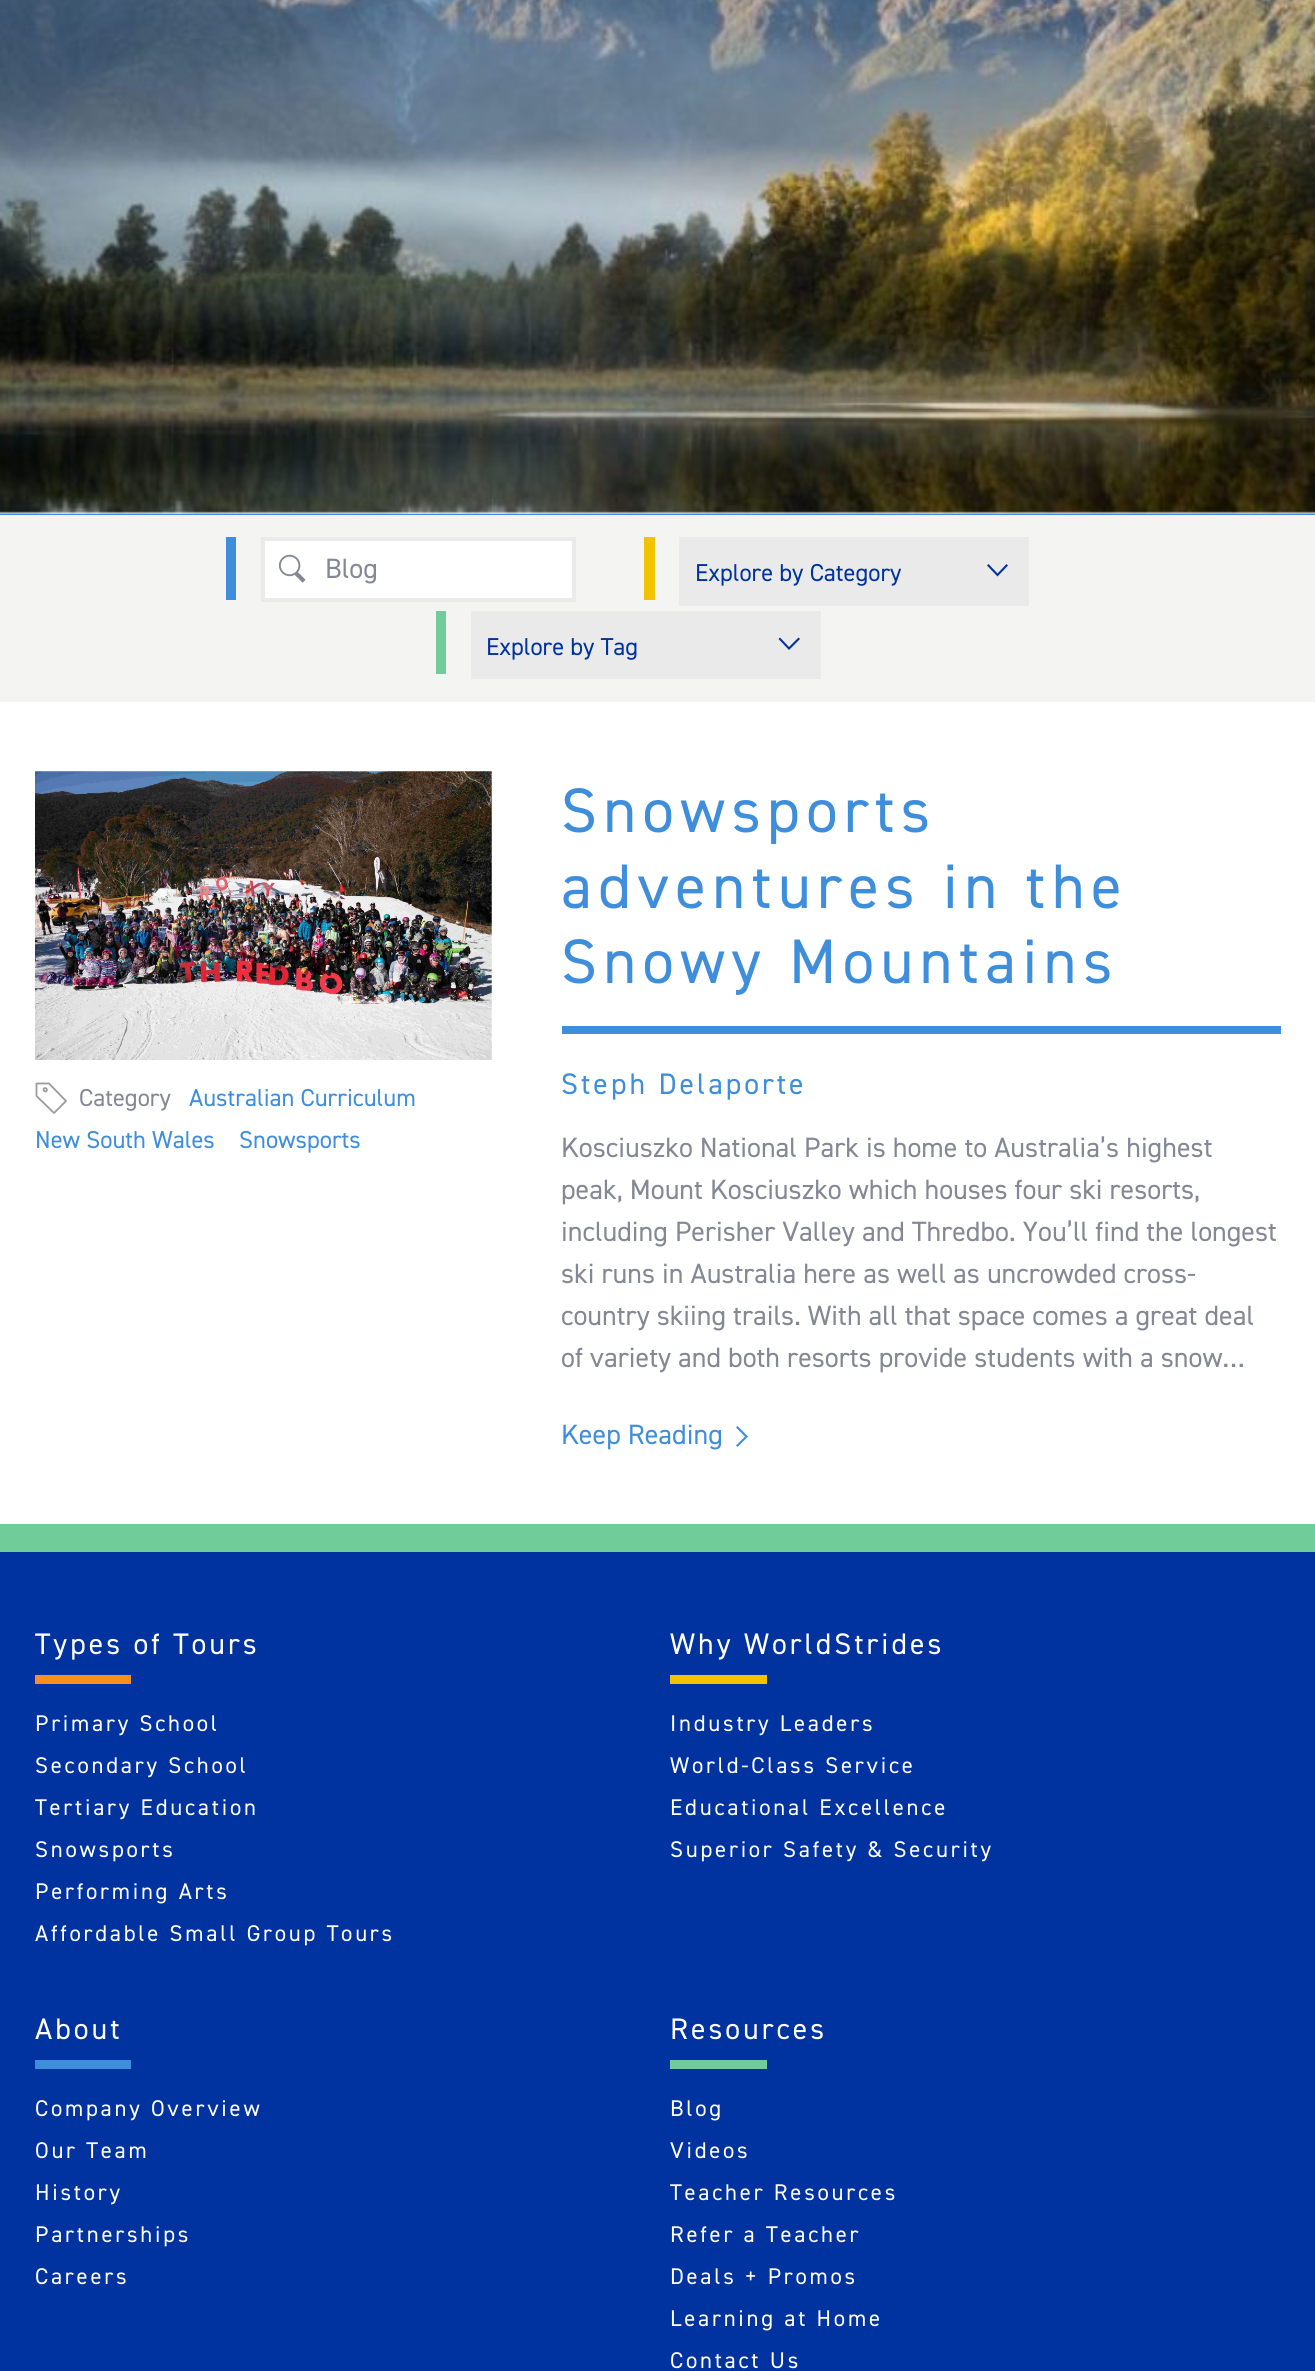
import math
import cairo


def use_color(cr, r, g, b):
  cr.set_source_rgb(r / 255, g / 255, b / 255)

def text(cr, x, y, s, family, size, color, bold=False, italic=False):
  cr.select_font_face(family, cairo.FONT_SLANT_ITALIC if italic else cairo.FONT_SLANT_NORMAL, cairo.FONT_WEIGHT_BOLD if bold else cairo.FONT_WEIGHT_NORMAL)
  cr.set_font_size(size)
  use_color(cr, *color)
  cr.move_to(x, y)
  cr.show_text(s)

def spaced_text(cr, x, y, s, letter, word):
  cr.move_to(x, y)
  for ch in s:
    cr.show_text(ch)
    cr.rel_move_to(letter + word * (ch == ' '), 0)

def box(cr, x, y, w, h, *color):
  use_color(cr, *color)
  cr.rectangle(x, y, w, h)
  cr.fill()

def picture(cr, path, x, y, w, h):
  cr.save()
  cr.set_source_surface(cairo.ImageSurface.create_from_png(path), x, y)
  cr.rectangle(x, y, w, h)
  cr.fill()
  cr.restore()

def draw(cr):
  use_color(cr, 255, 255, 255)
  cr.paint()
  box(cr, 0, 514, 1315, 1, 62, 142, 220)
  picture(cr, "img_01.png", 0, 0, 1315, 514)
  box(cr, 0, 515, 1315, 187, 244, 244, 242)
  box(cr, 226, 537, 10, 63, 62, 142, 220)
  use_color(cr, 255, 255, 255)
  cr.rectangle(263, 539, 311, 61)
  cr.fill_preserve()
  use_color(cr, 234, 234, 234)
  cr.set_line_width(4)
  cr.stroke()
  picture(cr, "img_02.png", 278, 554, 28, 29)
  box(cr, 644, 537, 11, 63, 242, 196, 0)
  box(cr, 679, 537, 350, 69, 234, 234, 234)
  use_color(cr, 0, 51, 160)
  cr.new_path()
  cr.move_to(988.5, 564)
  cr.line_to(997.5, 573.5)
  cr.line_to(1006.5, 564)
  cr.line_to(1008, 565.5)
  cr.line_to(997.5, 576.5)
  cr.line_to(987, 565.5)
  cr.close_path()
  cr.fill()
  box(cr, 436, 611, 10, 63, 112, 204, 153)
  box(cr, 471, 611, 350, 68, 234, 234, 234)
  use_color(cr, 0, 51, 160)
  cr.new_path()
  cr.move_to(780, 637.5)
  cr.line_to(789, 647)
  cr.line_to(798.5, 637.5)
  cr.line_to(800, 639)
  cr.line_to(789, 650)
  cr.line_to(778.5, 639)
  cr.close_path()
  cr.fill()
  picture(cr, "img_03.png", 35, 771, 457, 289)
  cr.new_path()
  cr.move_to(36.5, 1096)
  cr.line_to(54, 1113)
  cr.line_to(66, 1101)
  cr.line_to(49, 1083.5)
  cr.line_to(36.5, 1083.5)
  cr.close_path()
  cr.move_to(46.5, 1091)
  cr.curve_to(45, 1092.5, 42.5, 1090, 44, 1088.5)
  cr.curve_to(45.5, 1087, 48, 1089.5, 46.5, 1091)
  cr.close_path()
  use_color(cr, 155, 155, 155)
  cr.set_line_width(1.8)
  cr.set_line_cap(cairo.LINE_CAP_ROUND)
  cr.set_line_join(cairo.LINE_JOIN_ROUND)
  cr.stroke()
  box(cr, 562, 1026, 719, 8, 62, 142, 220)
  cr.new_path()
  cr.move_to(736, 1445.5)
  cr.line_to(745, 1436.5)
  cr.line_to(736, 1427.5)
  cr.line_to(737.5, 1426)
  cr.line_to(748, 1436.5)
  cr.line_to(737.5, 1447)
  cr.close_path()
  cr.fill()
  box(cr, 0, 1524, 1315, 28, 112, 204, 153)
  box(cr, 0, 1552, 1315, 819, 0, 51, 160)
  box(cr, 35, 1675, 96, 9, 251, 144, 29)
  box(cr, 670, 1675, 97, 9, 242, 196, 0)
  box(cr, 35, 2060, 96, 9, 62, 142, 220)
  box(cr, 670, 2060, 97, 9, 112, 204, 153)
  text(cr, 325, 578, "Blog", "DIN", 28, (132, 136, 148))
  text(cr, 695, 581, "Explore by Category", "DIN", 24.5, (0, 51, 160))
  text(cr, 486, 655, "Explore by Tag", "DIN", 24.5, (0, 51, 160))
  text(cr, 189, 1106, "Australian Curriculum", "DIN", 24.5, (62, 142, 220))
  text(cr, 35, 1148, "New South Wales", "DIN", 24.5, (62, 142, 220))
  text(cr, 239, 1148, "Snowsports", "DIN", 24.5, (62, 142, 220))
  text(cr, 79, 1106, "Category", "DIN", 24.5, (132, 136, 148))
  cr.set_font_size(63)
  use_color(cr, 62, 142, 220)
  spaced_text(cr, 561, 832, "Snowsports", 6.25, 0)
  spaced_text(cr, 561, 908, "adventures in the", 6.25, 0)
  spaced_text(cr, 561, 983, "Snowy Mountains", 6.25, 0)
  cr.set_font_size(29.75)
  spaced_text(cr, 561, 1094, "Steph Delaporte", 3, 0)
  text(cr, 561, 1157, "Kosciuszko National Park is home to Australia’s highest", "DIN", 28, (132, 136, 148))
  text(cr, 561, 1199, "peak, Mount Kosciuszko which houses four ski resorts,", "DIN", 28, (132, 136, 148))
  text(cr, 561, 1241, "including Perisher Valley and Thredbo. You’ll find the longest", "DIN", 28, (132, 136, 148))
  text(cr, 561, 1283, "ski runs in Australia here as well as uncrowded cross-", "DIN", 28, (132, 136, 148))
  text(cr, 561, 1325, "country skiing trails. With all that space comes a great deal", "DIN", 28, (132, 136, 148))
  text(cr, 561, 1367, "of variety and both resorts provide students with a snow…", "DIN", 28, (132, 136, 148))
  text(cr, 561, 1444, "Keep Reading", "DIN", 28, (62, 142, 220))
  cr.set_font_size(29.75)
  use_color(cr, 255, 255, 255)
  spaced_text(cr, 35, 1654, "Types of Tours", 3, 0)
  cr.set_font_size(22.75)
  spaced_text(cr, 35, 1731, "Primary School", 2.75, 0)
  spaced_text(cr, 35, 1773, "Secondary School", 2.75, 0)
  spaced_text(cr, 35, 1815, "Tertiary Education", 2.75, 0)
  spaced_text(cr, 35, 1857, "Snowsports", 2.75, 0)
  spaced_text(cr, 35, 1899, "Performing Arts", 2.75, 0)
  spaced_text(cr, 35, 1941, "Affordable Small Group Tours", 2.75, 0)
  cr.set_font_size(29.75)
  spaced_text(cr, 670, 1654, "Why WorldStrides", 3, 0)
  cr.set_font_size(22.75)
  spaced_text(cr, 670, 1731, "Industry Leaders", 2.75, 0)
  spaced_text(cr, 670, 1773, "World-Class Service", 2.75, 0)
  spaced_text(cr, 670, 1815, "Educational Excellence", 2.75, 0)
  spaced_text(cr, 670, 1857, "Superior Safety & Security", 2.75, 0)
  cr.set_font_size(29.75)
  spaced_text(cr, 35, 2039, "About", 3, 0)
  cr.set_font_size(22.75)
  spaced_text(cr, 35, 2116, "Company Overview", 2.75, 0)
  spaced_text(cr, 35, 2158, "Our Team", 2.75, 0)
  spaced_text(cr, 35, 2200, "History", 2.75, 0)
  spaced_text(cr, 35, 2242, "Partnerships", 2.75, 0)
  spaced_text(cr, 35, 2284, "Careers", 2.75, 0)
  cr.set_font_size(29.75)
  spaced_text(cr, 670, 2039, "Resources", 3, 0)
  cr.set_font_size(22.75)
  spaced_text(cr, 670, 2116, "Blog", 2.75, 0)
  spaced_text(cr, 670, 2158, "Videos", 2.75, 0)
  spaced_text(cr, 670, 2200, "Teacher Resources", 2.75, 0)
  spaced_text(cr, 670, 2242, "Refer a Teacher", 2.75, 0)
  spaced_text(cr, 670, 2284, "Deals + Promos", 2.75, 0)
  spaced_text(cr, 670, 2326, "Learning at Home", 2.75, 0)
  spaced_text(cr, 670, 2368, "Contact Us", 2.75, 0)


surface = cairo.ImageSurface(cairo.FORMAT_RGB24, 1315, 2371)
cr = cairo.Context(surface)
options = cairo.FontOptions()
options.set_hint_metrics(cairo.HINT_METRICS_OFF)
options.set_hint_style(cairo.HINT_STYLE_NONE)
cr.set_font_options(options)
cr.set_miter_limit(4)
draw(cr)
surface.write_to_png("out.png")
